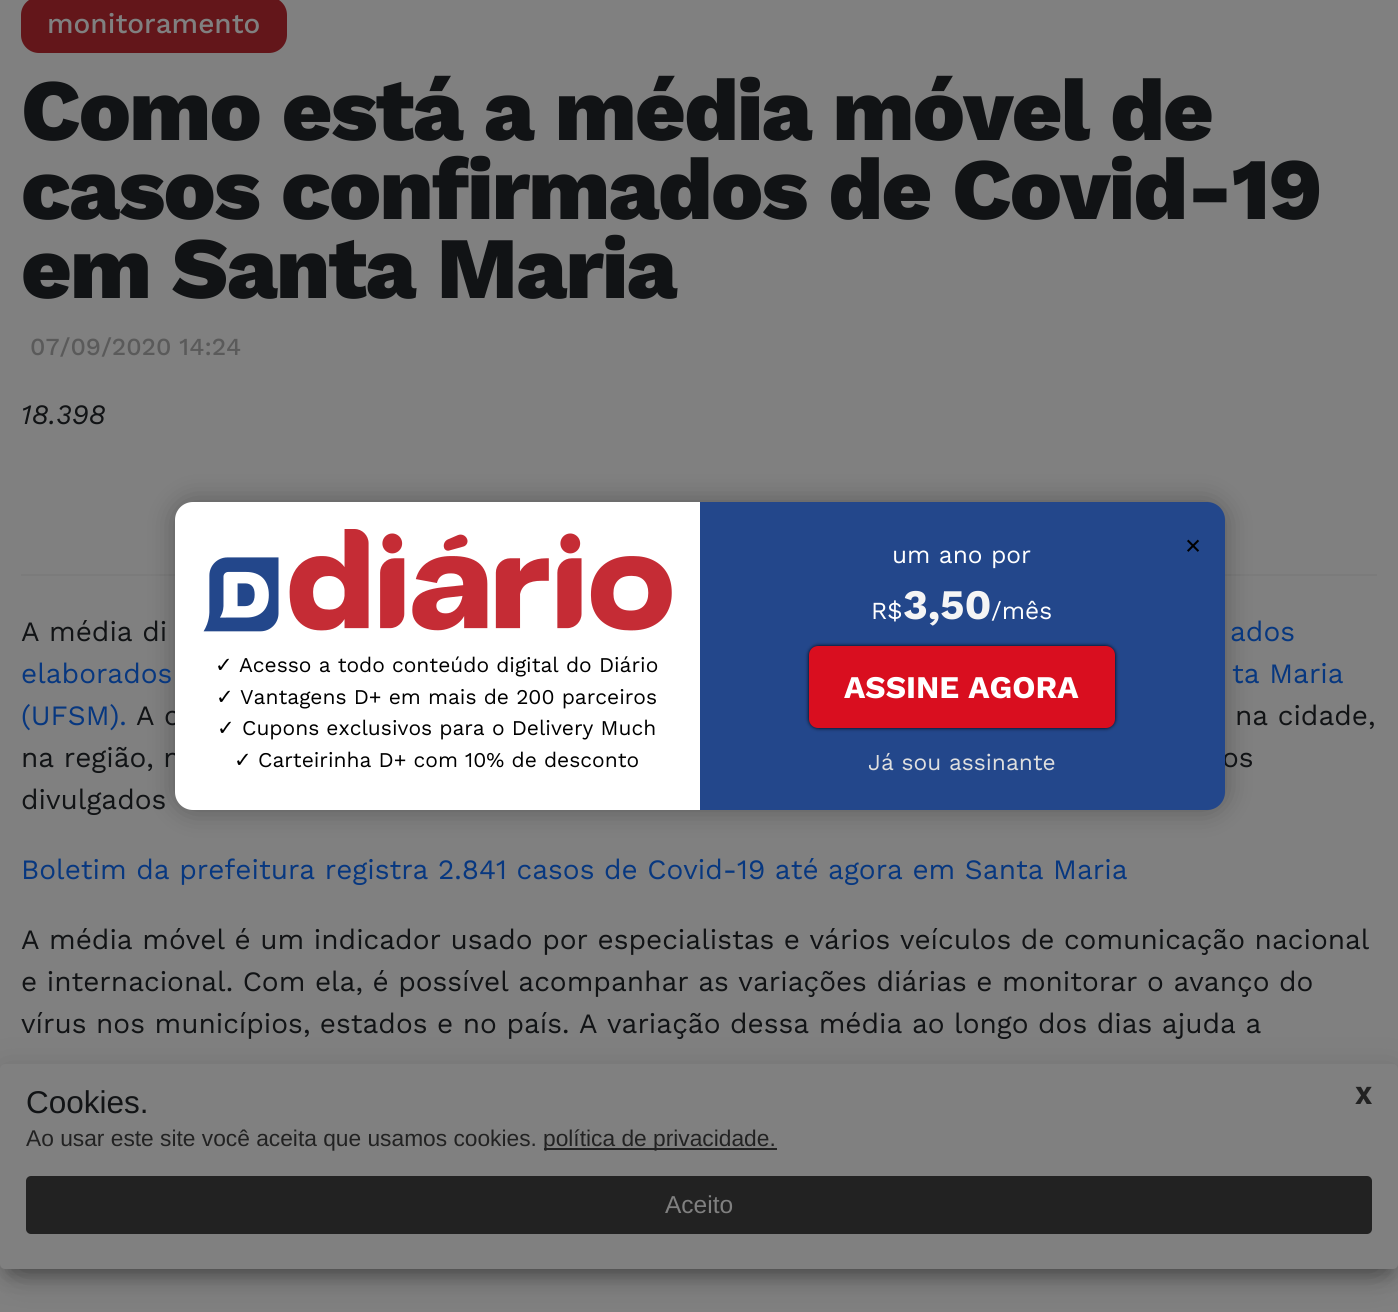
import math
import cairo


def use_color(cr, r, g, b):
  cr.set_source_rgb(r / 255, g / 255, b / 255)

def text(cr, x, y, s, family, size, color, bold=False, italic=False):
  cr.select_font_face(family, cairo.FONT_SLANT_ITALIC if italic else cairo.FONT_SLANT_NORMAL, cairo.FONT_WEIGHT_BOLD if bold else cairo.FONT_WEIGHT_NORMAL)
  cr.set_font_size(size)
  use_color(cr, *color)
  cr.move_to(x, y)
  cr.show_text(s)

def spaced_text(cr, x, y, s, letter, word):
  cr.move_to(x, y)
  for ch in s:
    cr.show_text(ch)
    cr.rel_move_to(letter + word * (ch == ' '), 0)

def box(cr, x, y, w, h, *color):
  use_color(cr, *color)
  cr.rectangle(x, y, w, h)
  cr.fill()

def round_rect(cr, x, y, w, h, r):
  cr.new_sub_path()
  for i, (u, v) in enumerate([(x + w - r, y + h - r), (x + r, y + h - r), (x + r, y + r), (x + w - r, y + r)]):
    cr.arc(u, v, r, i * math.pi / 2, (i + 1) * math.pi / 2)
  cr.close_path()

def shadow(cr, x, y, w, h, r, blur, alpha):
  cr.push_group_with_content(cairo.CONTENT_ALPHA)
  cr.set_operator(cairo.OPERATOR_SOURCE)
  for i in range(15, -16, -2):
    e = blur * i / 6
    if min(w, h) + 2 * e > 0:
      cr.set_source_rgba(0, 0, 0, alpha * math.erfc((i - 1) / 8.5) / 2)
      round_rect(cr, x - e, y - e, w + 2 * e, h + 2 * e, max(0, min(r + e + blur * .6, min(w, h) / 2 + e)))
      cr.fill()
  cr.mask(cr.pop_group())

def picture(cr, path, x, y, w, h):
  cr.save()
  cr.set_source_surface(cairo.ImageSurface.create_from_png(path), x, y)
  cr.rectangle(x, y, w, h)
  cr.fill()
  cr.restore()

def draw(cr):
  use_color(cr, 128, 128, 128)
  cr.paint()
  use_color(cr, 99, 22, 26)
  round_rect(cr, 21, -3, 266, 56, 18)
  cr.fill()
  box(cr, 21, 574, 1356, 2, 123, 123, 123)
  use_color(cr, 0, 0, 0)
  shadow(cr, 175, 502, 1050, 308, 18, 13, 0.3)
  shadow(cr, 9, 1087, 1381, 187, 0, 9, 0.2)
  shadow(cr, 0, 1069, 1398, 205, 5, 17.5, 0.12)
  shadow(cr, 21, 1103, 1356, 162, 0, 17.5, 0.42)
  use_color(cr, 128, 128, 128)
  round_rect(cr, 0, 1064, 1398, 205, 5)
  cr.fill()
  box(cr, 544, 1148, 233, 2, 34, 34, 34)
  round_rect(cr, 26, 1176, 1346, 58, 5)
  cr.fill()
  text(cr, 47, 33, "monitoramento", "Work Sans Medium", 28, (128, 128, 128))
  cr.select_font_face("Work Sans ExtraBold")
  cr.set_font_size(87.5)
  use_color(cr, 17, 19, 21)
  spaced_text(cr, 21, 140, "Como está a média móvel de", -1.75, 0)
  spaced_text(cr, 21, 219, "casos confirmados de Covid-19", -1.75, 0)
  spaced_text(cr, 21, 298, "em Santa Maria", -1.75, 0)
  text(cr, 30, 355, "07/09/2020 14:24", "Work Sans Medium", 24.5, (90, 90, 90))
  text(cr, 21, 424, "18.398", "Work Sans", 28, (17, 19, 21), italic=True)
  text(cr, 21, 641, "A média di", "Work Sans", 28, (17, 19, 21))
  text(cr, 1230, 641, "ados", "Work Sans", 28, (7, 55, 127))
  text(cr, 21, 683, "elaborados", "Work Sans", 28, (7, 55, 127))
  text(cr, 1232, 683, "ta Maria", "Work Sans", 28, (7, 55, 127))
  text(cr, 21, 725, "(UFSM).", "Work Sans", 28, (7, 55, 127))
  text(cr, 136, 725, "A c", "Work Sans", 28, (17, 19, 21))
  text(cr, 1235, 725, "na cidade,", "Work Sans", 28, (17, 19, 21))
  text(cr, 21, 767, "na região, n", "Work Sans", 28, (17, 19, 21))
  text(cr, 1222, 767, "os", "Work Sans", 28, (17, 19, 21))
  text(cr, 21, 809, "divulgados", "Work Sans", 28, (17, 19, 21))
  text(cr, 21, 879, "Boletim da prefeitura registra 2.841 casos de Covid-19 até agora em Santa Maria", "Work Sans", 28, (7, 55, 127))
  text(cr, 21, 949, "A média móvel é um indicador usado por especialistas e vários veículos de comunicação nacional", "Work Sans", 28, (17, 19, 21))
  text(cr, 21, 991, "e internacional. Com ela, é possível acompanhar as variações diárias e monitorar o avanço do", "Work Sans", 28, (17, 19, 21))
  text(cr, 21, 1033, "vírus nos municípios, estados e no país. A variação dessa média ao longo dos dias ajuda a", "Work Sans", 28, (17, 19, 21))
  use_color(cr, 255, 255, 255)
  cr.new_path()
  cr.move_to(193, 502)
  cr.line_to(700, 502)
  cr.line_to(700, 810)
  cr.line_to(193, 810)
  cr.curve_to(183, 810, 175, 802, 175, 792)
  cr.line_to(175, 520)
  cr.curve_to(175, 510, 183, 502, 193, 502)
  cr.close_path()
  cr.fill()
  picture(cr, "img_01.png", 203, 529, 469, 103)
  text(cr, 215, 672, "✓", "DejaVu Sans", 21, (0, 0, 0))
  text(cr, 239, 672, "Acesso a todo conteúdo digital do Diário", "Work Sans", 21, (0, 0, 0))
  text(cr, 216, 704, "✓", "DejaVu Sans", 21, (0, 0, 0))
  text(cr, 240, 704, "Vantagens D+ em mais de 200 parceiros", "Work Sans", 21, (0, 0, 0))
  text(cr, 217, 735, "✓", "DejaVu Sans", 21, (0, 0, 0))
  text(cr, 242, 735, "Cupons exclusivos para o Delivery Much", "Work Sans", 21, (0, 0, 0))
  text(cr, 234, 767, "✓", "DejaVu Sans", 21, (0, 0, 0))
  text(cr, 258, 767, "Carteirinha D+ com 10% de desconto", "Work Sans", 21, (0, 0, 0))
  use_color(cr, 35, 71, 139)
  cr.new_path()
  cr.move_to(700, 502)
  cr.line_to(1207, 502)
  cr.curve_to(1217, 502, 1225, 510, 1225, 520)
  cr.line_to(1225, 792)
  cr.curve_to(1225, 802, 1217, 810, 1207, 810)
  cr.line_to(700, 810)
  cr.close_path()
  cr.fill()
  text(cr, 1183, 558, "×", "Montserrat", 35, (0, 0, 0))
  text(cr, 892, 563, "um ano por", "Work Sans", 24.5, (255, 255, 255))
  text(cr, 871, 619, "R$", "Work Sans", 24.5, (255, 255, 255))
  text(cr, 903, 619, "3,50", "Work Sans", 42, (245, 245, 245), bold=True)
  text(cr, 991, 619, "/mês", "Work Sans", 24.5, (255, 255, 255))
  use_color(cr, 0, 0, 0)
  shadow(cr, 809, 646, 306, 82, 9, 2, 1)
  use_color(cr, 217, 14, 31)
  round_rect(cr, 809, 646, 306, 82, 9)
  cr.fill()
  text(cr, 844, 698, "ASSINE AGORA", "Work Sans", 31.5, (255, 255, 255), bold=True)
  text(cr, 868, 770, "Já sou assinante", "Work Sans", 22.75, (223, 223, 223))
  text(cr, 26, 1113, "Cookies.", "Liberation Sans", 31.5, (17, 19, 21))
  text(cr, 1355, 1104, "X", "Work Sans", 26, (34, 34, 34), bold=True)
  text(cr, 26, 1146, "Ao usar este site você aceita que usamos cookies.", "Liberation Sans", 22.75, (34, 34, 34))
  text(cr, 543, 1146, "política de privacidade.", "Liberation Sans", 22.75, (34, 34, 34))
  text(cr, 665, 1213, "Aceito", "Liberation Sans", 24.5, (128, 128, 128))


surface = cairo.ImageSurface(cairo.FORMAT_RGB24, 1398, 1312)
cr = cairo.Context(surface)
options = cairo.FontOptions()
options.set_hint_metrics(cairo.HINT_METRICS_OFF)
options.set_hint_style(cairo.HINT_STYLE_NONE)
cr.set_font_options(options)
cr.set_miter_limit(4)
draw(cr)
surface.write_to_png("out.png")
